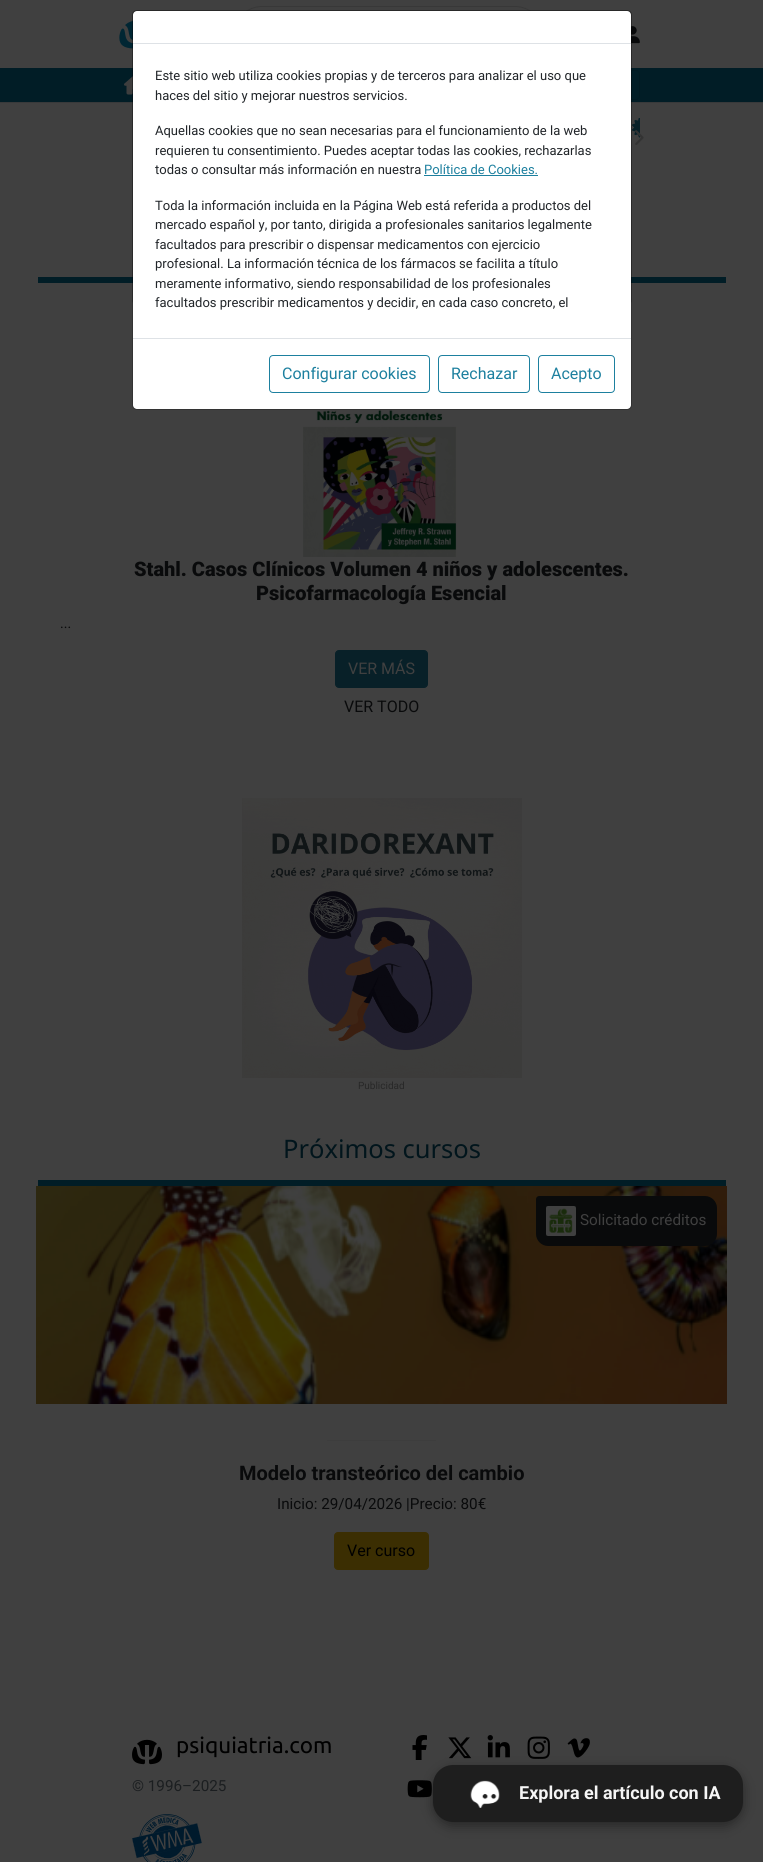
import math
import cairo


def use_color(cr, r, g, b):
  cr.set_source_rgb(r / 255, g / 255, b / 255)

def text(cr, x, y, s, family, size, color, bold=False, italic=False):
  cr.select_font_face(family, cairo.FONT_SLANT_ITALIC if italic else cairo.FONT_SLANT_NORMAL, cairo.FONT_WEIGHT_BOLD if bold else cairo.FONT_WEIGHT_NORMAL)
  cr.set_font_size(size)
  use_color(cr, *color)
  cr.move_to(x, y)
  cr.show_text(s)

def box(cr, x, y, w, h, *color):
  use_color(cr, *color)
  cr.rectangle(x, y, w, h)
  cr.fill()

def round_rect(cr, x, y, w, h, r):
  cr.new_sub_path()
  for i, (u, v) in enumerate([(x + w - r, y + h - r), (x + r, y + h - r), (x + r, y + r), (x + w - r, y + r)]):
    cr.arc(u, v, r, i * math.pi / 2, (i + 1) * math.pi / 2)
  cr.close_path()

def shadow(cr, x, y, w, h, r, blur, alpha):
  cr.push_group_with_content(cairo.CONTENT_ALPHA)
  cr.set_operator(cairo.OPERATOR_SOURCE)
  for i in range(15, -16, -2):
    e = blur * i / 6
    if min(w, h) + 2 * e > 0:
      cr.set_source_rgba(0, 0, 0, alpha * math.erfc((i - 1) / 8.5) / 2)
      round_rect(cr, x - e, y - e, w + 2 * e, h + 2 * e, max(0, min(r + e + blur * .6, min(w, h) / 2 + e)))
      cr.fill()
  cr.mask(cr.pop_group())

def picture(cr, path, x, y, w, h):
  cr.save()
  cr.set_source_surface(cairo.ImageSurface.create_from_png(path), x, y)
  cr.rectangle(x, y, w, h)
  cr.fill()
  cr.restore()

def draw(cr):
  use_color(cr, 64, 64, 64)
  cr.paint()
  picture(cr, "img_01.png", 119, 21, 14, 28)
  round_rect(cr, 234.5, 6.5, 308, 55, 27.5)
  use_color(cr, 56, 56, 56)
  cr.set_line_width(1)
  cr.stroke()
  picture(cr, "img_02.png", 631, 26, 9, 18)
  box(cr, 0, 68, 763, 34, 1, 29, 38)
  picture(cr, "img_03.png", 124, 76, 9, 19)
  round_rect(cr, 596.5, 70.5, 43, 29, 3.5)
  use_color(cr, 1, 26, 34)
  cr.stroke()
  box(cr, 0, 102, 763, 1, 56, 57, 58)
  picture(cr, "img_04.png", 632, 118, 8, 20)
  picture(cr, "img_05.png", 635, 130, 9, 15)
  box(cr, 38, 277, 688, 6, 1, 29, 38)
  round_rect(cr, 132.5, 10.5, 499, 294, 4.5)
  cr.set_source_rgba(0, 0, 0, 0.2)
  cr.stroke()
  use_color(cr, 255, 255, 255)
  round_rect(cr, 133, 11, 498, 398, 4)
  cr.fill()
  picture(cr, "img_06.png", 303, 409, 154, 148)
  round_rect(cr, 132.5, 10.5, 499, 399, 4.5)
  cr.set_source_rgba(0, 0, 0, 0.2)
  cr.stroke()
  box(cr, 133, 43, 498, 1, 222, 226, 230)
  box(cr, 424, 175, 114, 1, 29, 128, 159)
  box(cr, 133, 338, 498, 1, 222, 226, 230)
  round_rect(cr, 269.5, 355.5, 160, 37, 3.5)
  use_color(cr, 29, 128, 159)
  cr.stroke()
  round_rect(cr, 438.5, 355.5, 91, 37, 3.5)
  cr.stroke()
  round_rect(cr, 538.5, 355.5, 76, 37, 3.5)
  cr.stroke()
  use_color(cr, 8, 32, 40)
  round_rect(cr, 335.5, 650.5, 92, 37, 3.5)
  cr.fill_preserve()
  cr.stroke()
  picture(cr, "img_07.png", 242, 798, 280, 280)
  box(cr, 38, 1180, 688, 6, 1, 29, 38)
  picture(cr, "img_08.png", 36, 1186, 691, 218)
  use_color(cr, 9, 10, 11)
  cr.new_path()
  cr.move_to(539, 1196)
  cr.line_to(705, 1196)
  cr.curve_to(711.5, 1196, 717, 1201.5, 717, 1208)
  cr.line_to(717, 1234)
  cr.curve_to(717, 1240.5, 711.5, 1246, 705, 1246)
  cr.line_to(548, 1246)
  cr.curve_to(541.5, 1246, 536, 1240.5, 536, 1234)
  cr.line_to(536, 1199)
  cr.curve_to(536, 1197.5, 537.5, 1196, 539, 1196)
  cr.close_path()
  cr.fill()
  picture(cr, "img_09.png", 546, 1206, 30, 30)
  gradient = cairo.LinearGradient(52, 1441, 711, 1441)
  gradient.add_color_stop_rgba(0, 0.251, 0.251, 0.251, 1)
  gradient.add_color_stop_rgba(0.5, 0.239, 0.239, 0.239, 1)
  gradient.add_color_stop_rgba(1, 0.251, 0.251, 0.251, 1)
  cr.set_source(gradient)
  cr.rectangle(327, 1440, 109, 1)
  cr.fill()
  use_color(cr, 59, 46, 2)
  round_rect(cr, 334.5, 1532.5, 94, 37, 3.5)
  cr.fill_preserve()
  cr.stroke()
  picture(cr, "img_10.png", 132, 1739, 30, 26)
  picture(cr, "img_11.png", 132, 1814, 70, 48)
  picture(cr, "img_12.png", 412, 1735, 15, 25)
  picture(cr, "img_13.png", 448, 1737, 24, 22)
  picture(cr, "img_14.png", 487, 1735, 23, 23)
  picture(cr, "img_15.png", 527, 1736, 23, 23)
  picture(cr, "img_16.png", 567, 1738, 23, 20)
  picture(cr, "img_17.png", 407, 1780, 25, 18)
  use_color(cr, 0, 0, 0)
  shadow(cr, 433, 1769, 310, 57, 20, 6, 0.4)
  use_color(cr, 30, 30, 30)
  round_rect(cr, 433, 1765, 310, 57, 20)
  cr.fill()
  picture(cr, "img_18.png", 470, 1780, 30, 28)
  text(cr, 155, 80, "Este sitio web utiliza cookies propias y de terceros para analizar el uso que", "Roboto", 13, (33, 37, 41))
  text(cr, 155, 100, "haces del sitio y mejorar nuestros servicios.", "Roboto", 13, (33, 37, 41))
  text(cr, 155, 135, "Aquellas cookies que no sean necesarias para el funcionamiento de la web", "Roboto", 13, (33, 37, 41))
  text(cr, 155, 155, "requieren tu consentimiento. Puedes aceptar todas las cookies, rechazarlas", "Roboto", 13, (33, 37, 41))
  text(cr, 155, 174, "todas o consultar más información en nuestra", "Roboto", 13, (33, 37, 41))
  text(cr, 424, 174, "Política de Cookies.", "Roboto", 13, (29, 128, 159))
  text(cr, 155, 210, "Toda la información incluida en la Página Web está referida a productos del", "Roboto", 13, (33, 37, 41))
  text(cr, 155, 229, "mercado español y, por tanto, dirigida a profesionales sanitarios legalmente", "Roboto", 13, (33, 37, 41))
  text(cr, 155, 249, "facultados para prescribir o dispensar medicamentos con ejercicio", "Roboto", 13, (33, 37, 41))
  text(cr, 155, 268, "profesional. La información técnica de los fármacos se facilita a título", "Roboto", 13, (33, 37, 41))
  text(cr, 155, 288, "meramente informativo, siendo responsabilidad de los profesionales", "Roboto", 13, (33, 37, 41))
  text(cr, 155, 307, "facultados prescribir medicamentos y decidir, en cada caso concreto, el", "Roboto", 13, (33, 37, 41))
  text(cr, 282, 379, "Configurar cookies", "Roboto", 16, (29, 128, 159))
  text(cr, 451, 379, "Rechazar", "Roboto", 16, (29, 128, 159))
  text(cr, 551, 379, "Acepto", "Roboto", 16, (29, 128, 159))
  text(cr, 134, 576, "Stahl. Casos Clínicos Volumen 4 niños y adolescentes.", "Roboto Black", 20, (9, 10, 11))
  text(cr, 256, 600, "Psicofarmacología Esencial", "Roboto Black", 20, (9, 10, 11))
  text(cr, 60, 628, "...", "Roboto", 14, (9, 10, 11))
  text(cr, 348, 674, "VER MÁS", "Roboto", 16, (64, 64, 64))
  text(cr, 344, 712, "VER TODO", "Roboto", 16, (9, 10, 11))
  text(cr, 358, 1089, "Publicidad", "Roboto", 10, (39, 39, 39))
  text(cr, 283, 1158, "Próximos cursos", "Noto Sans", 25.5, (1, 21, 28))
  text(cr, 580, 1225, "Solicitado créditos", "Roboto", 15.25, (64, 64, 64))
  text(cr, 239, 1480, "Modelo transteórico del cambio", "Roboto", 20, (9, 10, 11), bold=True)
  text(cr, 277, 1509, "Inicio: 29/04/2026 |Precio: 80€", "Roboto", 15.25, (9, 10, 11))
  text(cr, 347, 1556, "Ver curso", "Roboto", 16, (0, 0, 0))
  text(cr, 176, 1753, "psiquiatria.com", "Ubuntu", 22.5, (0, 0, 0))
  text(cr, 132, 1791, "© 1996–2025", "Roboto", 15.25, (27, 30, 32))
  text(cr, 519, 1799, "Explora el artículo con IA", "Roboto", 18, (245, 245, 245), bold=True)


surface = cairo.ImageSurface(cairo.FORMAT_RGB24, 763, 1862)
cr = cairo.Context(surface)
options = cairo.FontOptions()
options.set_hint_metrics(cairo.HINT_METRICS_OFF)
options.set_hint_style(cairo.HINT_STYLE_NONE)
cr.set_font_options(options)
cr.set_miter_limit(4)
draw(cr)
surface.write_to_png("out.png")
